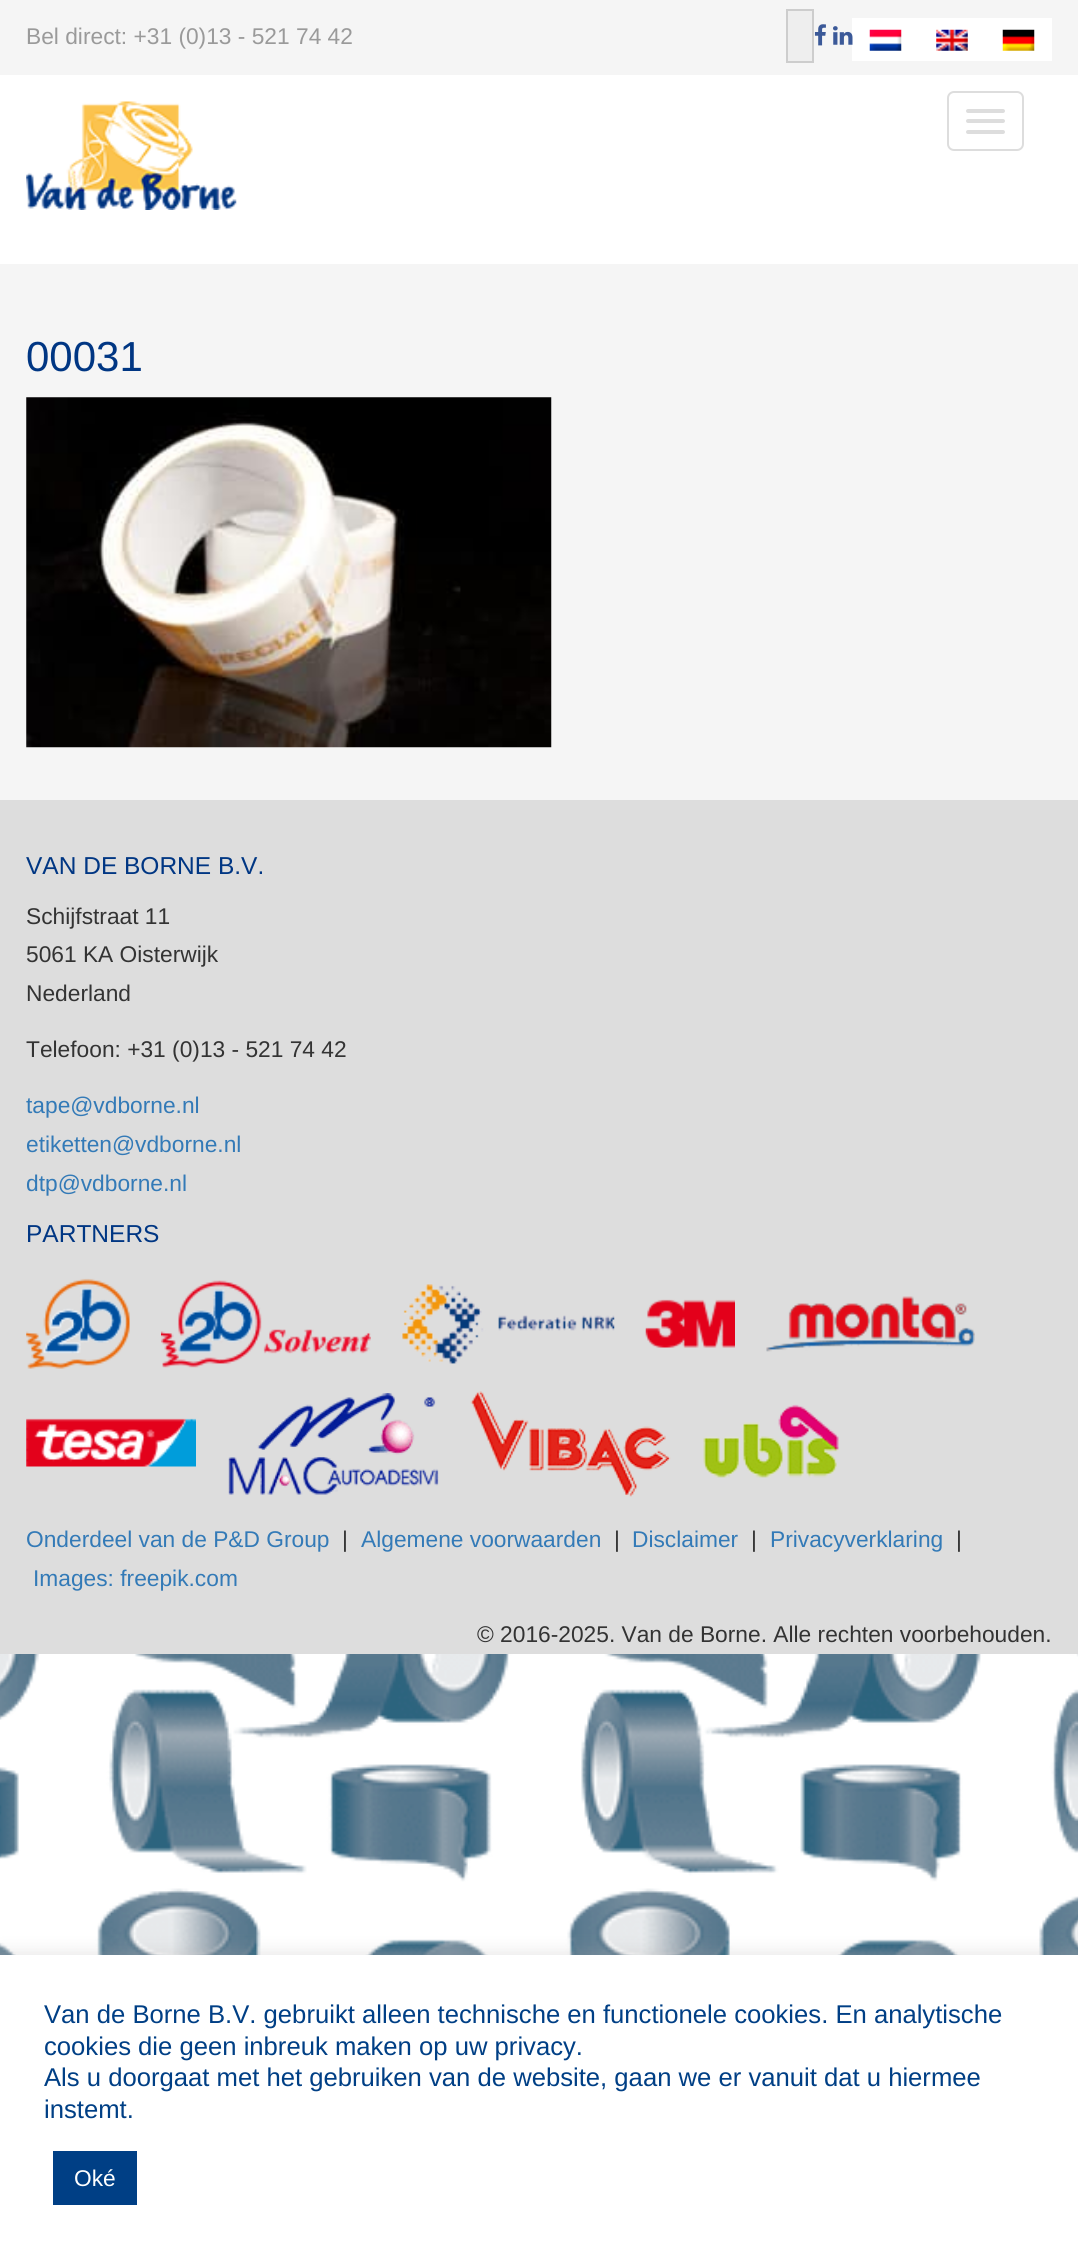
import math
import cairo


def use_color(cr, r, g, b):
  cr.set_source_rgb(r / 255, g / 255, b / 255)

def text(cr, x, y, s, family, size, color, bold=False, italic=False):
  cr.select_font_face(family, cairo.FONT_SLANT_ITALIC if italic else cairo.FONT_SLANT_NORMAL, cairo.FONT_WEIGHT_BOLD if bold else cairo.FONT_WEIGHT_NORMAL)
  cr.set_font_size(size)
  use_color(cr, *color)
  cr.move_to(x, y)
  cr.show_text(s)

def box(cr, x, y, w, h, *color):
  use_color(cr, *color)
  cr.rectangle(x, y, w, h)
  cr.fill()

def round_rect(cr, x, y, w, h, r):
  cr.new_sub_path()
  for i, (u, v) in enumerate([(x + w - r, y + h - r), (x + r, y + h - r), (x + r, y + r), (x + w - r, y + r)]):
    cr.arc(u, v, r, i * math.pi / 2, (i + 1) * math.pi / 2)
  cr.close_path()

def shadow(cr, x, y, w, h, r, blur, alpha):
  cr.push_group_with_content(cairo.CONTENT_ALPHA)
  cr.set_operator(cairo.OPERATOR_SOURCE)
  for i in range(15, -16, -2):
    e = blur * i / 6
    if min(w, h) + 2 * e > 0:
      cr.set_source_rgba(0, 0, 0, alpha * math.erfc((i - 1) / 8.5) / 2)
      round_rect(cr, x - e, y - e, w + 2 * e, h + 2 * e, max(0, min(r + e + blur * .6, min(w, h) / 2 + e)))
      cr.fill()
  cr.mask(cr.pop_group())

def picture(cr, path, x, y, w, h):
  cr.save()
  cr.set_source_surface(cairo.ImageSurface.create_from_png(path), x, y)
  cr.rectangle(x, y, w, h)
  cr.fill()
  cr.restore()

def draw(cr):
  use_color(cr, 255, 255, 255)
  cr.paint()
  picture(cr, "img_01.png", 0, 1654, 1078, 301)
  box(cr, 0, 0, 1078, 75, 245, 245, 245)
  use_color(cr, 238, 238, 238)
  cr.rectangle(787, 10, 26, 52)
  cr.fill_preserve()
  use_color(cr, 205, 205, 205)
  cr.stroke()
  box(cr, 852, 18, 200, 43, 255, 255, 255)
  picture(cr, "img_02.png", 869, 29, 33, 22)
  picture(cr, "img_03.png", 936, 29, 32, 22)
  picture(cr, "img_04.png", 1002, 29, 33, 22)
  picture(cr, "img_05.png", 814, 24, 12, 22)
  picture(cr, "img_06.png", 833, 26, 20, 19)
  picture(cr, "img_07.png", 26, 101, 211, 109)
  round_rect(cr, 948, 92, 75, 58, 6)
  use_color(cr, 221, 221, 221)
  cr.stroke()
  round_rect(cr, 966, 109, 39, 4, 2)
  cr.fill()
  round_rect(cr, 966, 119, 39, 4, 2)
  cr.fill()
  round_rect(cr, 966, 130, 39, 4, 2)
  cr.fill()
  box(cr, 0, 264, 1078, 536, 245, 245, 245)
  picture(cr, "img_08.png", 26, 397, 526, 351)
  box(cr, 0, 800, 1078, 854, 221, 221, 221)
  picture(cr, "img_09.png", 26, 1278, 104, 91)
  picture(cr, "img_10.png", 161, 1280, 210, 88)
  picture(cr, "img_11.png", 402, 1284, 213, 80)
  picture(cr, "img_12.png", 645, 1299, 90, 49)
  picture(cr, "img_13.png", 766, 1296, 209, 56)
  picture(cr, "img_14.png", 26, 1418, 170, 49)
  picture(cr, "img_15.png", 228, 1393, 211, 102)
  picture(cr, "img_16.png", 470, 1391, 201, 106)
  picture(cr, "img_17.png", 703, 1404, 136, 74)
  use_color(cr, 172, 171, 171)
  shadow(cr, 0, 1953, 1078, 303, 0, 9, 0.3)
  box(cr, 0, 1955, 1078, 301, 255, 255, 255)
  box(cr, 53, 2151, 84, 54, 0, 63, 133)
  text(cr, 26, 44, "Bel direct: +31 (0)13 - 521 74 42", "Liberation Sans", 22.75, (154, 154, 154))
  text(cr, 26, 371, "00031", "Liberation Sans", 42, (0, 54, 131))
  text(cr, 26, 874, "VAN DE BORNE B.V.", "Liberation Sans", 24.5, (0, 54, 131))
  text(cr, 26, 924, "Schijfstraat 11", "Liberation Sans", 22.75, (51, 51, 51))
  text(cr, 26, 962, "5061 KA Oisterwijk", "Liberation Sans", 22.75, (51, 51, 51))
  text(cr, 26, 1001, "Nederland", "Liberation Sans", 22.75, (51, 51, 51))
  text(cr, 26, 1057, "Telefoon: +31 (0)13 - 521 74 42", "Liberation Sans", 22.75, (51, 51, 51))
  text(cr, 26, 1113, "tape@vdborne.nl", "Liberation Sans", 22.75, (51, 122, 183))
  text(cr, 26, 1152, "etiketten@vdborne.nl", "Liberation Sans", 22.75, (51, 122, 183))
  text(cr, 26, 1191, "dtp@vdborne.nl", "Liberation Sans", 22.75, (51, 122, 183))
  text(cr, 26, 1242, "PARTNERS", "Liberation Sans", 24.5, (0, 54, 131))
  text(cr, 26, 1547, "Onderdeel van de P&D Group", "Liberation Sans", 22.75, (51, 122, 183))
  text(cr, 342, 1547, "|", "Liberation Sans", 22.75, (51, 51, 51))
  text(cr, 361, 1547, "Algemene voorwaarden", "Liberation Sans", 22.75, (51, 122, 183))
  text(cr, 614, 1547, "|", "Liberation Sans", 22.75, (51, 51, 51))
  text(cr, 632, 1547, "Disclaimer", "Liberation Sans", 22.75, (51, 122, 183))
  text(cr, 751, 1547, "|", "Liberation Sans", 22.75, (51, 51, 51))
  text(cr, 770, 1547, "Privacyverklaring", "Liberation Sans", 22.75, (51, 122, 183))
  text(cr, 956, 1547, "|", "Liberation Sans", 22.75, (51, 51, 51))
  text(cr, 33, 1586, "Images: freepik.com", "Liberation Sans", 22.75, (51, 122, 183))
  text(cr, 477, 1642, "© 2016-2025. Van de Borne. Alle rechten voorbehouden.", "Liberation Sans", 22.75, (51, 51, 51))
  text(cr, 44, 2023, "Van de Borne B.V. gebruikt alleen technische en functionele cookies. En analytische", "Liberation Sans", 25.65, (0, 63, 133))
  text(cr, 44, 2055, "cookies die geen inbreuk maken op uw privacy.", "Liberation Sans", 25.65, (0, 63, 133))
  text(cr, 44, 2086, "Als u doorgaat met het gebruiken van de website, gaan we er vanuit dat u hiermee", "Liberation Sans", 25.65, (0, 63, 133))
  text(cr, 44, 2118, "instemt.", "Liberation Sans", 25.65, (0, 63, 133))
  text(cr, 74, 2186, "Oké", "Liberation Sans", 22.75, (255, 255, 255))


surface = cairo.ImageSurface(cairo.FORMAT_RGB24, 1078, 2256)
cr = cairo.Context(surface)
options = cairo.FontOptions()
options.set_hint_metrics(cairo.HINT_METRICS_OFF)
options.set_hint_style(cairo.HINT_STYLE_NONE)
cr.set_font_options(options)
cr.set_miter_limit(4)
draw(cr)
surface.write_to_png("out.png")
